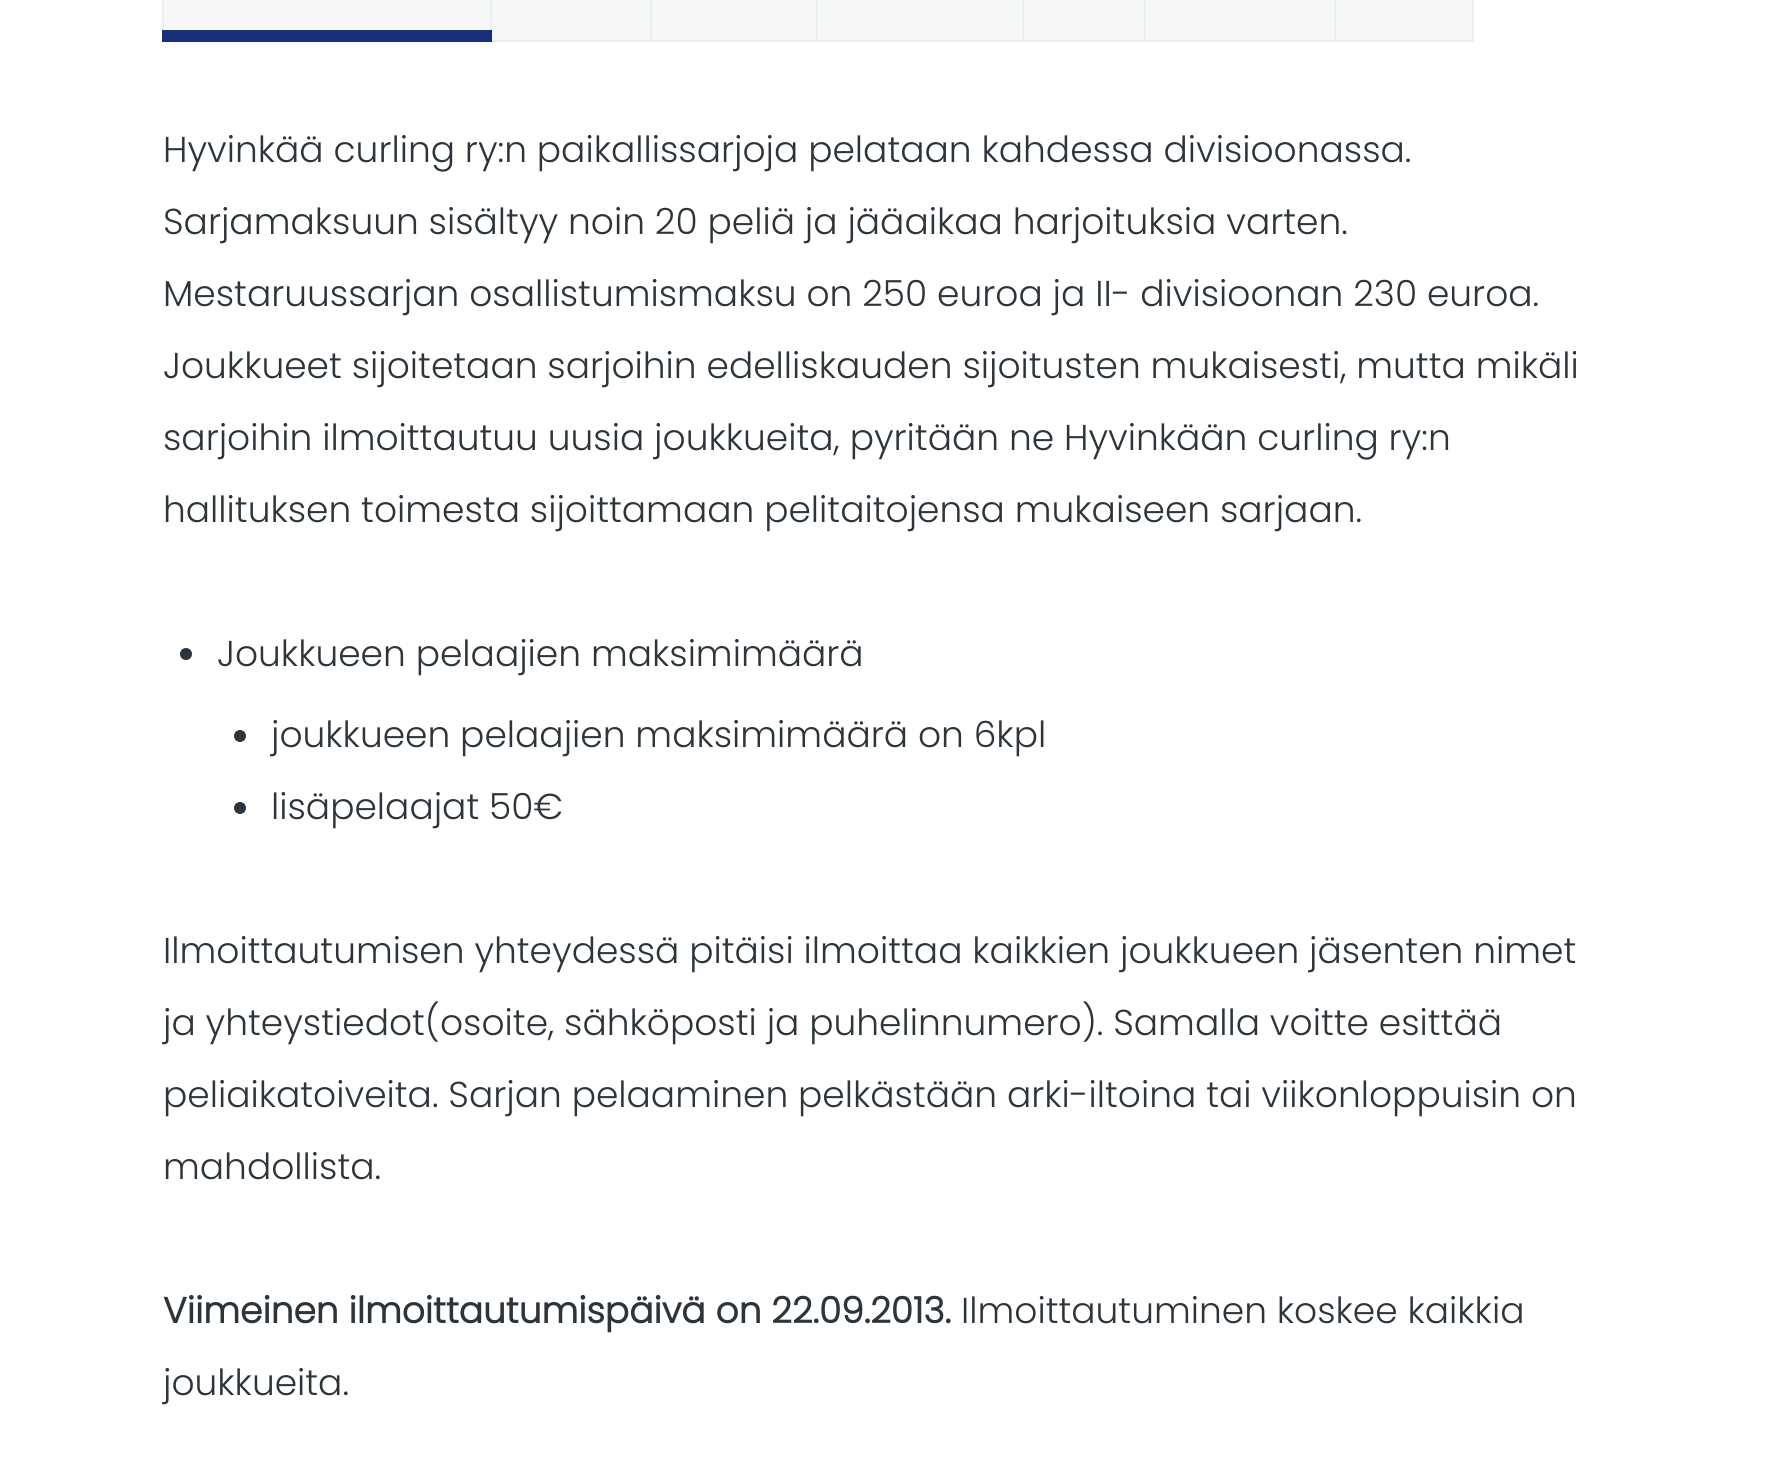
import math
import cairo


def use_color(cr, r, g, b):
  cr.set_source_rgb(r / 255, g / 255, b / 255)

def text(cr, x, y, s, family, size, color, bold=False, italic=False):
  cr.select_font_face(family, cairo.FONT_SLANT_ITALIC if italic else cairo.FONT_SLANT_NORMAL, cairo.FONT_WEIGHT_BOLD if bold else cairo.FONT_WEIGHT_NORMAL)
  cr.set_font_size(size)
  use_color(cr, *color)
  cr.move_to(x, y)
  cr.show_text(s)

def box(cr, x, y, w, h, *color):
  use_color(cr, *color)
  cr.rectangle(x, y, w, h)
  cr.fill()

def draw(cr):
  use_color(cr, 255, 255, 255)
  cr.paint()
  box(cr, 164, 0, 326, 30, 246, 248, 248)
  cr.rectangle(491, -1, 160, 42)
  cr.fill_preserve()
  use_color(cr, 234, 238, 240)
  cr.stroke()
  cr.rectangle(163, -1, 328, 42)
  cr.stroke()
  box(cr, 162, 30, 330, 12, 24, 47, 124)
  use_color(cr, 246, 248, 248)
  cr.rectangle(651, -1, 166, 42)
  cr.fill_preserve()
  use_color(cr, 234, 238, 240)
  cr.stroke()
  use_color(cr, 246, 248, 248)
  cr.rectangle(817, -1, 206, 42)
  cr.fill_preserve()
  use_color(cr, 234, 238, 240)
  cr.stroke()
  use_color(cr, 246, 248, 248)
  cr.rectangle(1023, -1, 122, 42)
  cr.fill_preserve()
  use_color(cr, 234, 238, 240)
  cr.stroke()
  use_color(cr, 246, 248, 248)
  cr.rectangle(1145, -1, 190, 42)
  cr.fill_preserve()
  use_color(cr, 234, 238, 240)
  cr.stroke()
  use_color(cr, 246, 248, 248)
  cr.rectangle(1335, -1, 138, 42)
  cr.fill_preserve()
  use_color(cr, 234, 238, 240)
  cr.stroke()
  use_color(cr, 43, 53, 59)
  cr.arc(186, 654, 6, 0, 2 * math.pi)
  cr.fill()
  cr.arc(240, 736, 6, 0, 2 * math.pi)
  cr.fill()
  cr.arc(240, 808, 6, 0, 2 * math.pi)
  cr.fill()
  text(cr, 163, 162, "Hyvinkää curling ry:n paikallissarjoja pelataan kahdessa divisioonassa.", "Poppins Light", 36, (43, 53, 59))
  text(cr, 163, 234, "Sarjamaksuun sisältyy noin 20 peliä ja jääaikaa harjoituksia varten.", "Poppins Light", 36, (43, 53, 59))
  text(cr, 163, 306, "Mestaruussarjan osallistumismaksu on 250 euroa ja II- divisioonan 230 euroa.", "Poppins Light", 36, (43, 53, 59))
  text(cr, 163, 378, "Joukkueet sijoitetaan sarjoihin edelliskauden sijoitusten mukaisesti, mutta mikäli", "Poppins Light", 36, (43, 53, 59))
  text(cr, 163, 450, "sarjoihin ilmoittautuu uusia joukkueita, pyritään ne Hyvinkään curling ry:n", "Poppins Light", 36, (43, 53, 59))
  text(cr, 163, 522, "hallituksen toimesta sijoittamaan pelitaitojensa mukaiseen sarjaan.", "Poppins Light", 36, (43, 53, 59))
  text(cr, 217, 666, "Joukkueen pelaajien maksimimäärä", "Poppins Light", 36, (43, 53, 59))
  text(cr, 271, 747, "joukkueen pelaajien maksimimäärä on 6kpl", "Poppins Light", 36, (43, 53, 59))
  text(cr, 271, 819, "lisäpelaajat 50€", "Poppins Light", 36, (43, 53, 59))
  text(cr, 163, 963, "Ilmoittautumisen yhteydessä pitäisi ilmoittaa kaikkien joukkueen jäsenten nimet", "Poppins Light", 36, (43, 53, 59))
  text(cr, 163, 1035, "ja yhteystiedot(osoite, sähköposti ja puhelinnumero). Samalla voitte esittää", "Poppins Light", 36, (43, 53, 59))
  text(cr, 163, 1107, "peliaikatoiveita. Sarjan pelaaminen pelkästään arki-iltoina tai viikonloppuisin on", "Poppins Light", 36, (43, 53, 59))
  text(cr, 163, 1179, "mahdollista.", "Poppins Light", 36, (43, 53, 59))
  text(cr, 163, 1323, "Viimeinen ilmoittautumispäivä on 22.09.2013.", "Poppins", 36, (43, 53, 59), bold=True)
  text(cr, 961, 1323, "Ilmoittautuminen koskee kaikkia", "Poppins Light", 36, (43, 53, 59))
  text(cr, 163, 1395, "joukkueita.", "Poppins Light", 36, (43, 53, 59))


surface = cairo.ImageSurface(cairo.FORMAT_RGB24, 1778, 1481)
cr = cairo.Context(surface)
options = cairo.FontOptions()
options.set_hint_metrics(cairo.HINT_METRICS_OFF)
options.set_hint_style(cairo.HINT_STYLE_NONE)
cr.set_font_options(options)
cr.set_miter_limit(4)
draw(cr)
surface.write_to_png("out.png")
